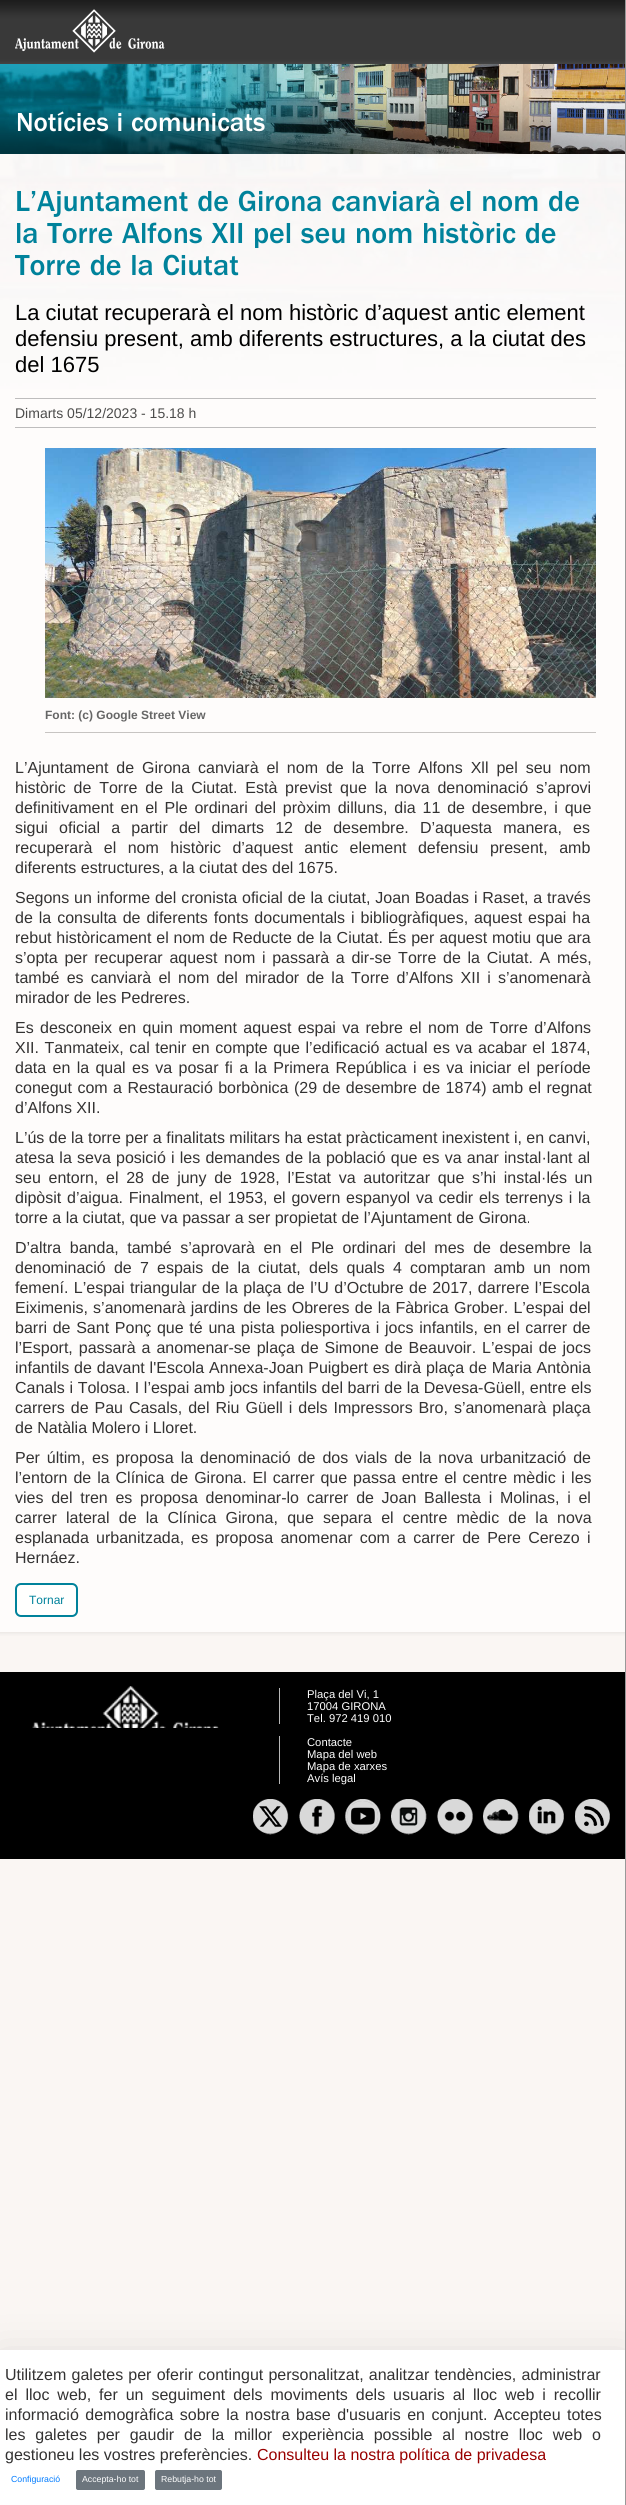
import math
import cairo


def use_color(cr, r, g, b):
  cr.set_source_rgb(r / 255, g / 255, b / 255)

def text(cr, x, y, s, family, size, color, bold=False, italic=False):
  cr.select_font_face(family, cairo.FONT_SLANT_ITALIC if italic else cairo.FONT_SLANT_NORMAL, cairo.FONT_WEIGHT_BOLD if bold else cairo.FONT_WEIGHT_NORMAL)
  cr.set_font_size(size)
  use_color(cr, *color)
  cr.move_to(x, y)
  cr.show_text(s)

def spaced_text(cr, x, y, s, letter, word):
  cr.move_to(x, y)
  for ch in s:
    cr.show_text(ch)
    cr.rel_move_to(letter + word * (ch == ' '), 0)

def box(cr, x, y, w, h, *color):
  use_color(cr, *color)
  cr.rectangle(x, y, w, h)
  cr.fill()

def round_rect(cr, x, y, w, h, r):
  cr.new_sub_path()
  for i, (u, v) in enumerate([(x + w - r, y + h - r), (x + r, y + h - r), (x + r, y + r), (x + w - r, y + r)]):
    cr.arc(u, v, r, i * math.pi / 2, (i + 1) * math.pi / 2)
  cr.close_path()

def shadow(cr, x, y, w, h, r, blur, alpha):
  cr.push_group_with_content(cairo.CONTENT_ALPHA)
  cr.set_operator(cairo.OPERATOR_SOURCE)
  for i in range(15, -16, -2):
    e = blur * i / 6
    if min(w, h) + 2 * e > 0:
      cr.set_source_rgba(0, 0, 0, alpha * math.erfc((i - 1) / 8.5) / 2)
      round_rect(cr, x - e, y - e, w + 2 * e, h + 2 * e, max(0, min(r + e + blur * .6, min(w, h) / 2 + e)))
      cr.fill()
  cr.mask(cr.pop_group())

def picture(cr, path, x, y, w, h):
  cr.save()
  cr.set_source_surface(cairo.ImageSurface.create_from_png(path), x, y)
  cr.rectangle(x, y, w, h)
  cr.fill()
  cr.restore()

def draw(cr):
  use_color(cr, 250, 246, 243)
  cr.paint()
  picture(cr, "img_01.png", 0, 154, 625, 235)
  picture(cr, "img_02.png", 0, 0, 625, 64)
  picture(cr, "img_03.png", 15, 9, 150, 44)
  cr.save()
  cr.set_fill_rule(cairo.FILL_RULE_EVEN_ODD)
  cr.new_path()
  cr.move_to(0, 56)
  cr.line_to(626, 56)
  cr.line_to(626, 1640)
  cr.line_to(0, 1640)
  cr.close_path()
  cr.move_to(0, 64)
  cr.line_to(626, 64)
  cr.line_to(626, 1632)
  cr.line_to(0, 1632)
  cr.close_path()
  cr.clip()
  use_color(cr, 143, 143, 143)
  shadow(cr, -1, 63, 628, 1570, 0, 2, 0.2)
  cr.restore()
  use_color(cr, 0, 0, 0)
  shadow(cr, 0, 2366, 626, 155, 0, 24, 0.18)
  box(cr, 625, 0, 1, 2505, 153, 153, 153)
  cr.set_source_rgba(1, 1, 1, 0.7)
  cr.rectangle(0, 154, 625, 1478)
  cr.fill()
  picture(cr, "img_04.png", 0, 64, 625, 90)
  picture(cr, "img_05.png", 0, 97, 625, 57)
  box(cr, 15, 398, 581, 1, 190, 189, 189)
  box(cr, 15, 427, 581, 1, 190, 189, 189)
  picture(cr, "img_06.png", 45, 448, 551, 250)
  box(cr, 45, 732, 551, 1, 199, 196, 194)
  use_color(cr, 255, 255, 254)
  round_rect(cr, 16, 1584, 61, 32, 5)
  cr.fill_preserve()
  use_color(cr, 0, 130, 155)
  cr.stroke()
  box(cr, 0, 1672, 625, 187, 0, 0, 0)
  picture(cr, "img_07.png", 32, 1686, 187, 42)
  box(cr, 279, 1688, 1, 36, 183, 183, 183)
  box(cr, 279, 1736, 1, 48, 183, 183, 183)
  picture(cr, "img_08.png", 253, 1799, 36, 36)
  picture(cr, "img_09.png", 299, 1799, 36, 36)
  picture(cr, "img_10.png", 345, 1799, 36, 36)
  picture(cr, "img_11.png", 391, 1799, 36, 36)
  picture(cr, "img_12.png", 437, 1799, 36, 36)
  picture(cr, "img_13.png", 483, 1799, 36, 36)
  picture(cr, "img_14.png", 529, 1799, 35, 36)
  picture(cr, "img_15.png", 575, 1799, 35, 36)
  box(cr, 0, 2350, 625, 155, 255, 255, 255)
  use_color(cr, 108, 117, 125)
  round_rect(cr, 76.5, 2470.5, 68, 19, 1.5)
  cr.fill_preserve()
  cr.set_line_width(1)
  cr.stroke()
  round_rect(cr, 155.5, 2470.5, 66, 19, 1.5)
  cr.fill_preserve()
  cr.stroke()
  text(cr, 16, 131, "Notícies i comunicats", "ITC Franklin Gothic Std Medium", 27, (255, 255, 255))
  text(cr, 15, 211, "L’Ajuntament de Girona canviarà el nom de", "ITC Franklin Gothic Std Medium", 30, (0, 130, 155))
  text(cr, 15, 243, "la Torre Alfons XII pel seu nom històric de", "ITC Franklin Gothic Std Medium", 30, (0, 130, 155))
  text(cr, 15, 275, "Torre de la Ciutat", "ITC Franklin Gothic Std Medium", 30, (0, 130, 155))
  text(cr, 15, 320, "La ciutat recuperarà el nom històric d’aquest antic element", "Liberation Sans", 22, (0, 0, 0))
  text(cr, 15, 346, "defensiu present, amb diferents estructures, a la ciutat des", "Liberation Sans", 22, (0, 0, 0))
  text(cr, 15, 372, "del 1675", "Liberation Sans", 22, (0, 0, 0))
  text(cr, 15, 418, "Dimarts 05/12/2023 - 15.18 h", "Liberation Sans", 14, (76, 76, 75))
  text(cr, 45, 719, "Font: (c) Google Street View", "Liberation Sans", 12, (102, 102, 102), bold=True)
  cr.select_font_face("Liberation Sans")
  cr.set_font_size(16)
  use_color(cr, 51, 50, 50)
  spaced_text(cr, 15, 773, "L’Ajuntament de Girona canviarà el nom de la Torre Alfons Xll pel seu nom", 0, 3.5)
  spaced_text(cr, 15, 793, "històric de Torre de la Ciutat. Està previst que la nova denominació s’aprovi", 0, 3.4)
  spaced_text(cr, 15, 813, "definitivament en el Ple ordinari del pròxim dilluns, dia 11 de desembre, i que", 0, 2.4)
  spaced_text(cr, 15, 833, "sigui oficial a partir del dimarts 12 de desembre. D’aquesta manera, es", 0, 6.75)
  spaced_text(cr, 15, 853, "recuperarà el nom històric d’aquest antic element defensiu present, amb", 0, 7)
  text(cr, 15, 873, "diferents estructures, a la ciutat des del 1675.", "Liberation Sans", 16, (51, 50, 50))
  spaced_text(cr, 15, 903, "Segons un informe del cronista oficial de la ciutat, Joan Boadas i Raset, a través", 0, 0.4)
  spaced_text(cr, 15, 923, "de la consulta de diferents fonts documentals i bibliogràfiques, aquest espai ha", 0, 1.5)
  spaced_text(cr, 15, 943, "rebut històricament el nom de Reducte de la Ciutat. És per aquest motiu que ara", 0, 0.4)
  spaced_text(cr, 15, 963, "s’opta per recuperar aquest nom i passarà a dir-se Torre de la Ciutat. A més,", 0, 2.25)
  spaced_text(cr, 15, 983, "també es canviarà el nom del mirador de la Torre d’Alfons XII i s’anomenarà", 0, 2.75)
  text(cr, 15, 1003, "mirador de les Pedreres.", "Liberation Sans", 16, (51, 50, 50))
  spaced_text(cr, 15, 1033, "Es desconeix en quin moment aquest espai va rebre el nom de Torre d’Alfons", 0, 1.9)
  spaced_text(cr, 15, 1053, "XII. Tanmateix, cal tenir en compte que l’edificació actual es va acabar el 1874,", 0, 1.1)
  spaced_text(cr, 15, 1073, "data en la qual es va posar fi a la Primera República i es va iniciar el període", 0, 1.9)
  spaced_text(cr, 15, 1093, "conegut com a Restauració borbònica (29 de desembre de 1874) amb el regnat", 0, 1)
  text(cr, 15, 1113, "d’Alfons XII.", "Liberation Sans", 16, (51, 50, 50))
  text(cr, 15, 1143, "L’ús de la torre per a finalitats militars ha estat pràcticament inexistent i, en canvi,", "Liberation Sans", 16, (51, 50, 50))
  spaced_text(cr, 15, 1163, "atesa la seva posició i les demandes de la població que es va anar instal·lant al", 0, 0.75)
  spaced_text(cr, 15, 1183, "seu entorn, el 28 de juny de 1928, l’Estat va autoritzar que s’hi instal·lés un", 0, 3.25)
  spaced_text(cr, 15, 1203, "dipòsit d’aigua. Finalment, el 1953, el govern espanyol va cedir els terrenys i la", 0, 1.3)
  text(cr, 15, 1223, "torre a la ciutat, que va passar a ser propietat de l’Ajuntament de Girona.", "Liberation Sans", 16, (51, 50, 50))
  spaced_text(cr, 15, 1253, "D’altra banda, també s’aprovarà en el Ple ordinari del mes de desembre la", 0, 4.1)
  spaced_text(cr, 15, 1273, "denominació de 7 espais de la ciutat, dels quals 4 comptaran amb un nom", 0, 3.75)
  spaced_text(cr, 15, 1293, "femení. L’espai triangular de la plaça de l’U d’Octubre de 2017, darrere l’Escola", 0, 1)
  spaced_text(cr, 15, 1313, "Eiximenis, s’anomenarà jardins de les Obreres de la Fàbrica Grober. L’espai del", 0, 0.75)
  spaced_text(cr, 15, 1333, "barri de Sant Ponç que té una pista poliesportiva i jocs infantils, en el carrer de", 0, 1.25)
  spaced_text(cr, 15, 1353, "l’Esport, passarà a anomenar-se plaça de Simone de Beauvoir. L’espai de jocs", 0, 1.5)
  spaced_text(cr, 15, 1373, "infantils de davant l'Escola Annexa-Joan Puigbert es dirà plaça de Maria Antònia", 0, 0.4)
  spaced_text(cr, 15, 1393, "Canals i Tolosa. I l’espai amb jocs infantils del barri de la Devesa-Güell, entre els", 0, 0.2)
  spaced_text(cr, 15, 1413, "carrers de Pau Casals, del Riu Güell i dels Impressors Bro, s’anomenarà plaça", 0, 1.5)
  text(cr, 15, 1433, "de Natàlia Molero i Lloret.", "Liberation Sans", 16, (51, 50, 50))
  spaced_text(cr, 15, 1463, "Per últim, es proposa la denominació de dos vials de la nova urbanització de", 0, 2.5)
  spaced_text(cr, 15, 1483, "l’entorn de la Clínica de Girona. El carrer que passa entre el centre mèdic i les", 0, 1.5)
  spaced_text(cr, 15, 1503, "vies del tren es proposa denominar-lo carrer de Joan Ballesta i Molinas, i el", 0, 3.25)
  spaced_text(cr, 15, 1523, "carrer lateral de la Clínica Girona, que separa el centre mèdic de la nova", 0, 4.75)
  spaced_text(cr, 15, 1543, "esplanada urbanitzada, es proposa anomenar com a carrer de Pere Cerezo i", 0, 2.75)
  text(cr, 15, 1563, "Hernáez.", "Liberation Sans", 16, (51, 50, 50))
  text(cr, 29, 1604, "Tornar", "Liberation Sans", 12, (0, 130, 155))
  text(cr, 307, 1698, "Plaça del Vi, 1", "Liberation Sans", 11.25, (255, 255, 255))
  text(cr, 307, 1710, "17004 GIRONA", "Liberation Sans", 11.25, (255, 255, 255))
  text(cr, 307, 1722, "Tel. 972 419 010", "Liberation Sans", 11.25, (255, 255, 255))
  text(cr, 307, 1746, "Contacte", "Liberation Sans", 11.25, (255, 255, 255))
  text(cr, 307, 1758, "Mapa del web", "Liberation Sans", 11.25, (255, 255, 255))
  text(cr, 307, 1770, "Mapa de xarxes", "Liberation Sans", 11.25, (255, 255, 255))
  text(cr, 307, 1782, "Avís legal", "Liberation Sans", 11.25, (255, 255, 255))
  cr.set_font_size(16)
  use_color(cr, 51, 50, 50)
  spaced_text(cr, 5, 2380, "Utilitzem galetes per oferir contingut personalitzat, analitzar tendències, administrar", 0, 0.75)
  spaced_text(cr, 5, 2400, "el lloc web, fer un seguiment dels moviments dels usuaris al lloc web i recollir", 0, 3.5)
  spaced_text(cr, 5, 2420, "informació demogràfica sobre la nostra base d'usuaris en conjunt. Accepteu totes", 0, 2)
  spaced_text(cr, 5, 2440, "les galetes per gaudir de la millor experiència possible al nostre lloc web o", 0, 5.4)
  text(cr, 5, 2460, "gestioneu les vostres preferències.", "Liberation Sans", 16, (51, 50, 50))
  text(cr, 257, 2460, "Consulteu la nostra política de privadesa", "Liberation Sans", 16, (153, 0, 0))
  text(cr, 11, 2482, "Configuració", "Liberation Sans", 8.75, (0, 123, 255))
  text(cr, 82, 2482, "Accepta-ho tot", "Liberation Sans", 8.75, (255, 255, 255))
  text(cr, 161, 2482, "Rebutja-ho tot", "Liberation Sans", 8.75, (255, 255, 255))


surface = cairo.ImageSurface(cairo.FORMAT_RGB24, 626, 2505)
cr = cairo.Context(surface)
options = cairo.FontOptions()
options.set_hint_metrics(cairo.HINT_METRICS_OFF)
options.set_hint_style(cairo.HINT_STYLE_NONE)
cr.set_font_options(options)
cr.set_miter_limit(4)
draw(cr)
surface.write_to_png("out.png")
